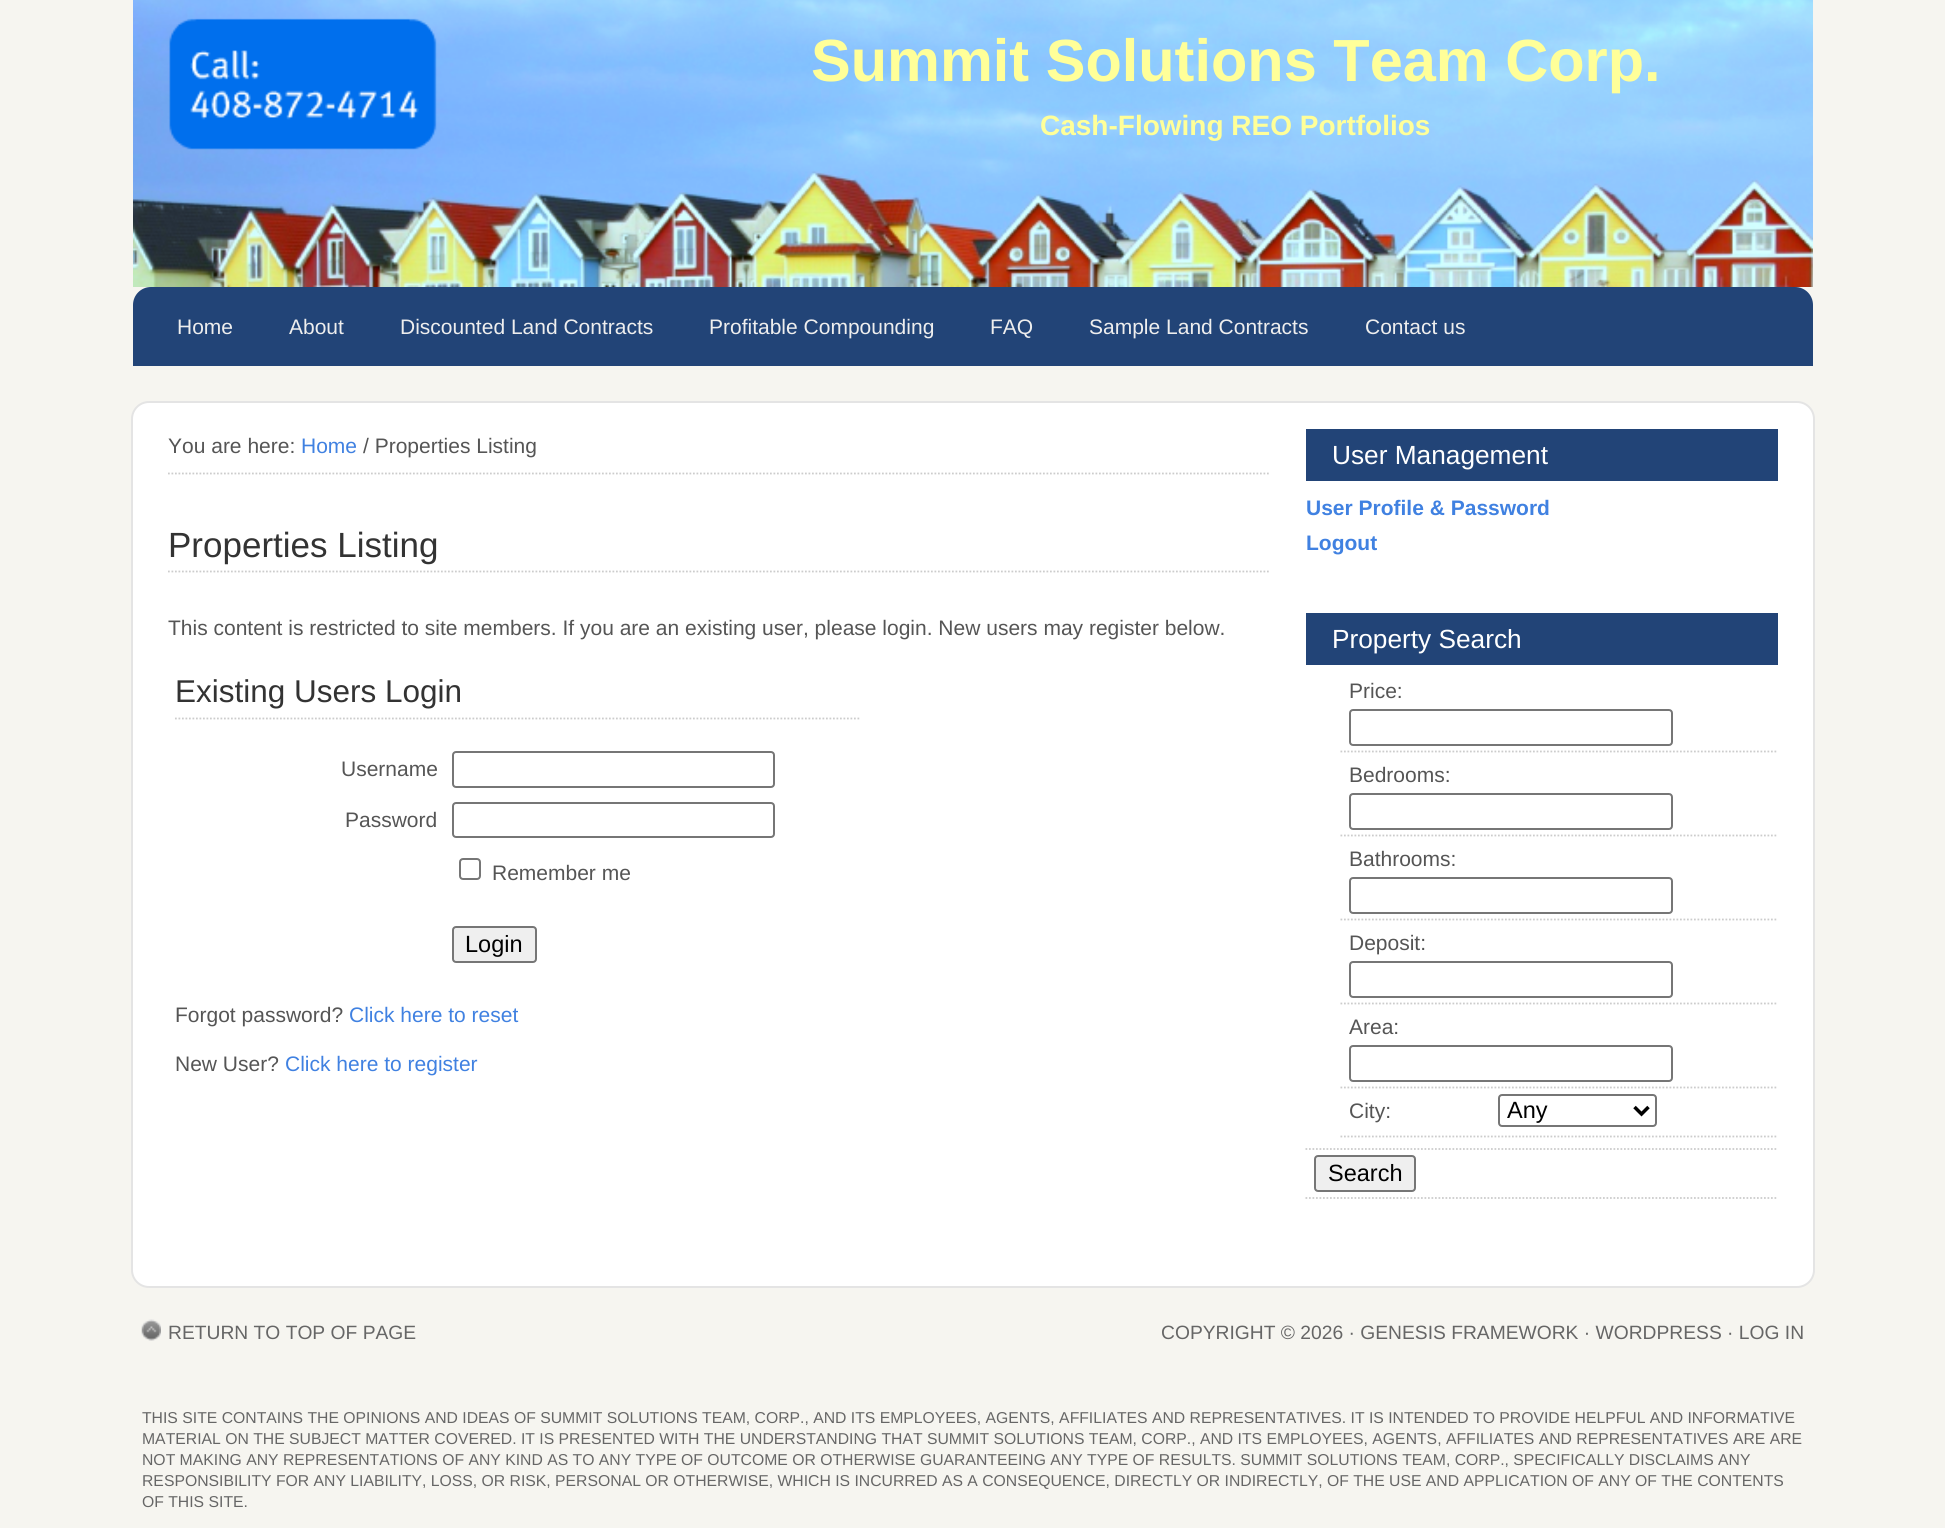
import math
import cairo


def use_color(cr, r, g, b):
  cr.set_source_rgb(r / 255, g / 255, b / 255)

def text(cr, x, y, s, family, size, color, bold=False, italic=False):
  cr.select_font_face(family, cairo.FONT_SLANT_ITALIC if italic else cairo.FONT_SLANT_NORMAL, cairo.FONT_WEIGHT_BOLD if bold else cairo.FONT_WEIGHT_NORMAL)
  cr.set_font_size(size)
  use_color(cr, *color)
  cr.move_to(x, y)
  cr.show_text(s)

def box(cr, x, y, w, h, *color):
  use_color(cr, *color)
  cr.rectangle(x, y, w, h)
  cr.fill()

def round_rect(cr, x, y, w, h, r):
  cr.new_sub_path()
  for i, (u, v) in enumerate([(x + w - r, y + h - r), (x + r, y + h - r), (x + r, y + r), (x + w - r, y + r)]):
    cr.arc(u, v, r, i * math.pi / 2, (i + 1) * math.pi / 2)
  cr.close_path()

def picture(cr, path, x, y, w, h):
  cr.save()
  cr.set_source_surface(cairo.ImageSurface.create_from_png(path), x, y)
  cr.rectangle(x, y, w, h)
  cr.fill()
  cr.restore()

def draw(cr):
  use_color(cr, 246, 245, 240)
  cr.paint()
  picture(cr, "img_01.png", 133, 0, 1680, 287)
  use_color(cr, 34, 68, 119)
  cr.new_path()
  cr.move_to(151, 287)
  cr.line_to(1795, 287)
  cr.curve_to(1805, 287, 1813, 295, 1813, 305)
  cr.line_to(1813, 366)
  cr.line_to(133, 366)
  cr.line_to(133, 305)
  cr.curve_to(133, 295, 141, 287, 151, 287)
  cr.close_path()
  cr.fill()
  use_color(cr, 255, 255, 255)
  round_rect(cr, 132, 402, 1682, 885, 17)
  cr.fill_preserve()
  use_color(cr, 228, 228, 228)
  cr.stroke()
  cr.new_path()
  cr.move_to(168, 473.5)
  cr.line_to(1270.5, 473.5)
  use_color(cr, 204, 204, 204)
  cr.set_line_width(1.8)
  cr.set_dash([1.75, 1.75])
  cr.stroke()
  cr.new_path()
  cr.move_to(168, 571.5)
  cr.line_to(1270.5, 571.5)
  cr.stroke()
  cr.new_path()
  cr.move_to(175, 718.5)
  cr.line_to(861, 718.5)
  cr.stroke()
  round_rect(cr, 453, 752, 321, 35, 3)
  use_color(cr, 118, 118, 118)
  cr.set_line_width(2)
  cr.set_dash([])
  cr.stroke()
  round_rect(cr, 453, 803, 321, 34, 3)
  cr.stroke()
  round_rect(cr, 460, 859, 20, 20, 3)
  cr.stroke()
  use_color(cr, 239, 239, 239)
  round_rect(cr, 453, 927, 83, 35, 3)
  cr.fill_preserve()
  use_color(cr, 118, 118, 118)
  cr.stroke()
  box(cr, 1306, 429, 472, 52, 34, 68, 119)
  box(cr, 1306, 613, 472, 52, 34, 68, 119)
  cr.new_path()
  cr.move_to(1305.5, 1149)
  cr.line_to(1778, 1149)
  use_color(cr, 204, 204, 204)
  cr.set_line_width(1.8)
  cr.set_dash([1.75, 1.75])
  cr.stroke()
  cr.new_path()
  cr.move_to(1340.5, 751.5)
  cr.line_to(1778, 751.5)
  cr.stroke()
  round_rect(cr, 1350, 710, 322, 35, 3)
  use_color(cr, 118, 118, 118)
  cr.set_line_width(2)
  cr.set_dash([])
  cr.stroke()
  cr.new_path()
  cr.move_to(1340.5, 835.5)
  cr.line_to(1778, 835.5)
  use_color(cr, 204, 204, 204)
  cr.set_line_width(1.8)
  cr.set_dash([1.75, 1.75])
  cr.stroke()
  round_rect(cr, 1350, 794, 322, 35, 3)
  use_color(cr, 118, 118, 118)
  cr.set_line_width(2)
  cr.set_dash([])
  cr.stroke()
  cr.new_path()
  cr.move_to(1340.5, 919.5)
  cr.line_to(1778, 919.5)
  use_color(cr, 204, 204, 204)
  cr.set_line_width(1.8)
  cr.set_dash([1.75, 1.75])
  cr.stroke()
  round_rect(cr, 1350, 878, 322, 35, 3)
  use_color(cr, 118, 118, 118)
  cr.set_line_width(2)
  cr.set_dash([])
  cr.stroke()
  cr.new_path()
  cr.move_to(1340.5, 1003.5)
  cr.line_to(1778, 1003.5)
  use_color(cr, 204, 204, 204)
  cr.set_line_width(1.8)
  cr.set_dash([1.75, 1.75])
  cr.stroke()
  round_rect(cr, 1350, 962, 322, 35, 3)
  use_color(cr, 118, 118, 118)
  cr.set_line_width(2)
  cr.set_dash([])
  cr.stroke()
  cr.new_path()
  cr.move_to(1340.5, 1087.5)
  cr.line_to(1778, 1087.5)
  use_color(cr, 204, 204, 204)
  cr.set_line_width(1.8)
  cr.set_dash([1.75, 1.75])
  cr.stroke()
  round_rect(cr, 1350, 1046, 322, 35, 3)
  use_color(cr, 118, 118, 118)
  cr.set_line_width(2)
  cr.set_dash([])
  cr.stroke()
  cr.new_path()
  cr.move_to(1340.5, 1136.5)
  cr.line_to(1778, 1136.5)
  use_color(cr, 204, 204, 204)
  cr.set_line_width(1.8)
  cr.set_dash([1.75, 1.75])
  cr.stroke()
  round_rect(cr, 1499, 1095, 157, 31, 3)
  use_color(cr, 118, 118, 118)
  cr.set_line_width(2)
  cr.set_dash([])
  cr.stroke()
  cr.new_path()
  cr.move_to(1634.5, 1107)
  cr.line_to(1641.5, 1114)
  cr.line_to(1648.5, 1107)
  use_color(cr, 0, 0, 0)
  cr.set_line_width(3.5)
  cr.stroke()
  cr.new_path()
  cr.move_to(1305.5, 1198)
  cr.line_to(1778, 1198)
  use_color(cr, 204, 204, 204)
  cr.set_line_width(1.8)
  cr.set_dash([1.75, 1.75])
  cr.stroke()
  use_color(cr, 239, 239, 239)
  round_rect(cr, 1315, 1156, 100, 35, 3)
  cr.fill_preserve()
  use_color(cr, 118, 118, 118)
  cr.set_line_width(2)
  cr.set_dash([])
  cr.stroke()
  picture(cr, "img_02.png", 141, 1319, 20, 22)
  text(cr, 811, 81, "Summit Solutions Team Corp.", "Liberation Sans", 59.5, (255, 255, 153), bold=True)
  text(cr, 1040, 135, "Cash-Flowing REO Portfolios", "Liberation Sans", 28, (255, 255, 153), bold=True)
  text(cr, 177, 334, "Home", "Liberation Sans", 21, (238, 238, 238))
  text(cr, 289, 334, "About", "Liberation Sans", 21, (238, 238, 238))
  text(cr, 400, 334, "Discounted Land Contracts", "Liberation Sans", 21, (238, 238, 238))
  text(cr, 709, 334, "Profitable Compounding", "Liberation Sans", 21, (238, 238, 238))
  text(cr, 990, 334, "FAQ", "Liberation Sans", 21, (238, 238, 238))
  text(cr, 1089, 334, "Sample Land Contracts", "Liberation Sans", 21, (238, 238, 238))
  text(cr, 1365, 334, "Contact us", "Liberation Sans", 21, (238, 238, 238))
  text(cr, 168, 453, "You are here:", "Liberation Sans", 21, (85, 85, 85))
  text(cr, 301, 453, "Home", "Liberation Sans", 21, (64, 129, 225))
  text(cr, 363, 453, "/ Properties Listing", "Liberation Sans", 21, (85, 85, 85))
  text(cr, 168, 557, "Properties Listing", "Liberation Sans", 35, (51, 51, 51))
  text(cr, 168, 635, "This content is restricted to site members. If you are an existing user, please login. New users may register below.", "Liberation Sans", 21, (85, 85, 85))
  text(cr, 175, 702, "Existing Users Login", "Liberation Sans", 31.5, (51, 51, 51))
  text(cr, 341, 776, "Username", "Liberation Sans", 21, (85, 85, 85))
  text(cr, 345, 827, "Password", "Liberation Sans", 21, (85, 85, 85))
  text(cr, 492, 880, "Remember me", "Liberation Sans", 21, (85, 85, 85))
  text(cr, 465, 952, "Login", "Liberation Sans", 23.5, (0, 0, 0))
  text(cr, 175, 1022, "Forgot password?", "Liberation Sans", 21, (85, 85, 85))
  text(cr, 349, 1022, "Click here to reset", "Liberation Sans", 21, (64, 129, 225))
  text(cr, 175, 1071, "New User?", "Liberation Sans", 21, (85, 85, 85))
  text(cr, 285, 1071, "Click here to register", "Liberation Sans", 21, (64, 129, 225))
  text(cr, 1332, 464, "User Management", "Liberation Sans", 26.25, (255, 255, 255))
  text(cr, 1306, 515, "User Profile & Password", "Liberation Sans", 21, (64, 129, 225), bold=True)
  text(cr, 1306, 550, "Logout", "Liberation Sans", 21, (64, 129, 225), bold=True)
  text(cr, 1332, 648, "Property Search", "Liberation Sans", 26.25, (255, 255, 255))
  text(cr, 1349, 698, "Price:", "Liberation Sans", 21, (85, 85, 85))
  text(cr, 1349, 782, "Bedrooms:", "Liberation Sans", 21, (85, 85, 85))
  text(cr, 1349, 866, "Bathrooms:", "Liberation Sans", 21, (85, 85, 85))
  text(cr, 1349, 950, "Deposit:", "Liberation Sans", 21, (85, 85, 85))
  text(cr, 1349, 1034, "Area:", "Liberation Sans", 21, (85, 85, 85))
  text(cr, 1349, 1118, "City:", "Liberation Sans", 21, (85, 85, 85))
  text(cr, 1507, 1118, "Any", "Liberation Sans", 23.5, (0, 0, 0))
  text(cr, 1328, 1181, "Search", "Liberation Sans", 23.5, (0, 0, 0))
  text(cr, 168, 1339, "RETURN TO TOP OF PAGE", "Liberation Sans", 19.25, (102, 102, 102))
  text(cr, 1161, 1339, "COPYRIGHT © 2026 · GENESIS FRAMEWORK · WORDPRESS · LOG IN", "Liberation Sans", 19.25, (102, 102, 102))
  text(cr, 142, 1423, "THIS SITE CONTAINS THE OPINIONS AND IDEAS OF SUMMIT SOLUTIONS TEAM, CORP., AND ITS EMPLOYEES, AGENTS, AFFILIATES AND REPRESENTATIVES. IT IS INTENDED TO PROVIDE HELPFUL AND INFORMATIVE", "Liberation Sans", 15.75, (102, 102, 102))
  text(cr, 142, 1444, "MATERIAL ON THE SUBJECT MATTER COVERED. IT IS PRESENTED WITH THE UNDERSTANDING THAT SUMMIT SOLUTIONS TEAM, CORP., AND ITS EMPLOYEES, AGENTS, AFFILIATES AND REPRESENTATIVES ARE ARE", "Liberation Sans", 15.75, (102, 102, 102))
  text(cr, 142, 1465, "NOT MAKING ANY REPRESENTATIONS OF ANY KIND AS TO ANY TYPE OF OUTCOME OR OTHERWISE GUARANTEEING ANY TYPE OF RESULTS. SUMMIT SOLUTIONS TEAM, CORP., SPECIFICALLY DISCLAIMS ANY", "Liberation Sans", 15.75, (102, 102, 102))
  text(cr, 142, 1486, "RESPONSIBILITY FOR ANY LIABILITY, LOSS, OR RISK, PERSONAL OR OTHERWISE, WHICH IS INCURRED AS A CONSEQUENCE, DIRECTLY OR INDIRECTLY, OF THE USE AND APPLICATION OF ANY OF THE CONTENTS", "Liberation Sans", 15.75, (102, 102, 102))
  text(cr, 142, 1507, "OF THIS SITE.", "Liberation Sans", 15.75, (102, 102, 102))


surface = cairo.ImageSurface(cairo.FORMAT_RGB24, 1945, 1528)
cr = cairo.Context(surface)
options = cairo.FontOptions()
options.set_hint_metrics(cairo.HINT_METRICS_OFF)
options.set_hint_style(cairo.HINT_STYLE_NONE)
cr.set_font_options(options)
cr.set_miter_limit(4)
draw(cr)
surface.write_to_png("out.png")
